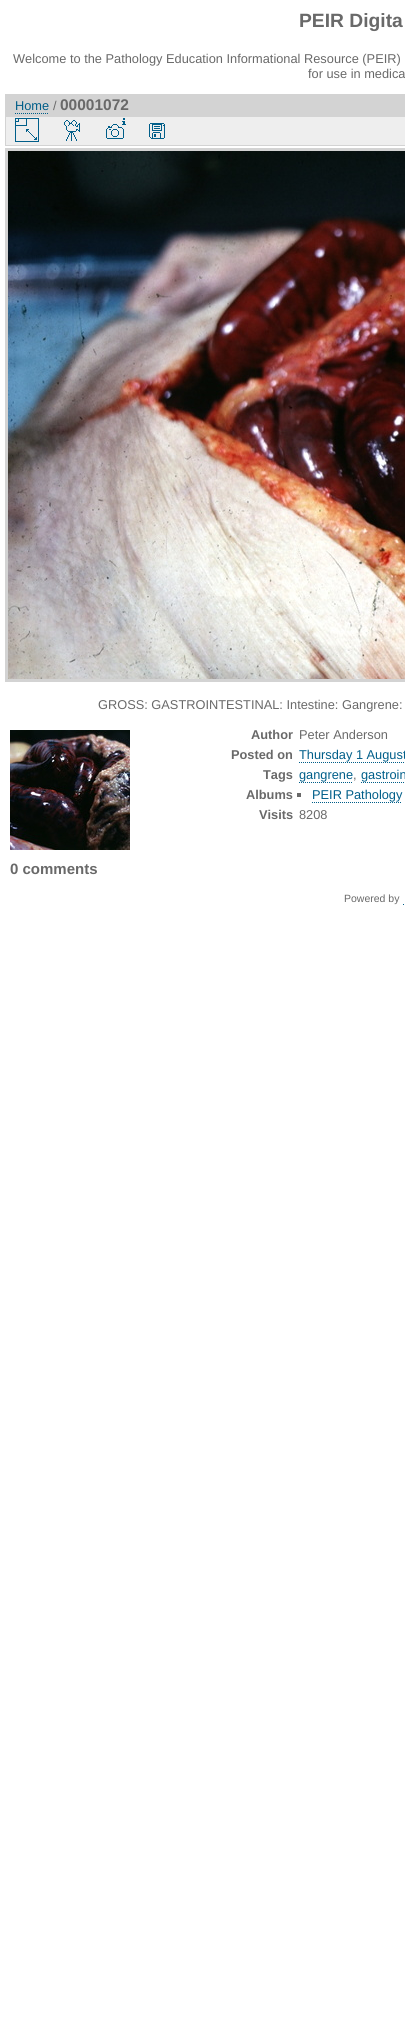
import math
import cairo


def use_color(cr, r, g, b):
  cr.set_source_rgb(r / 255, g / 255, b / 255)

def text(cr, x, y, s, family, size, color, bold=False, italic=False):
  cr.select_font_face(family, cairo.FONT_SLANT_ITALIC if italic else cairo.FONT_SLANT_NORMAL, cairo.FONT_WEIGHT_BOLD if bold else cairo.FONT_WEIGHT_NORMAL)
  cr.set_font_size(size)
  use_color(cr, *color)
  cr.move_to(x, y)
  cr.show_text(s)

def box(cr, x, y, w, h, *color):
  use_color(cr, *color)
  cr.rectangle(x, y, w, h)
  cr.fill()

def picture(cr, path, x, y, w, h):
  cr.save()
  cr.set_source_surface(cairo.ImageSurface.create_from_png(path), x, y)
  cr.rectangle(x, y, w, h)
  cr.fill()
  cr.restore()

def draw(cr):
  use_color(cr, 255, 255, 255)
  cr.paint()
  box(cr, 5, 94, 400, 22, 211, 211, 211)
  cr.new_path()
  cr.move_to(15, 113.5)
  cr.line_to(49, 113.5)
  use_color(cr, 0, 94, 137)
  cr.set_line_width(1)
  cr.set_dash([1, 1])
  cr.stroke()
  use_color(cr, 238, 238, 238)
  cr.rectangle(5.5, 116.5, 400, 29)
  cr.fill_preserve()
  use_color(cr, 211, 211, 211)
  cr.set_dash([])
  cr.stroke()
  picture(cr, "img_01.png", 15, 118, 24, 24)
  picture(cr, "img_02.png", 64, 120, 16, 21)
  picture(cr, "img_03.png", 106, 118, 20, 21)
  picture(cr, "img_04.png", 149, 123, 16, 16)
  cr.rectangle(6.5, 149.5, 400, 531)
  cr.set_line_width(3)
  cr.stroke()
  picture(cr, "img_05.png", 8, 151, 397, 528)
  picture(cr, "img_06.png", 10, 730, 120, 120)
  cr.new_path()
  cr.move_to(299, 762.5)
  cr.line_to(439, 762.5)
  use_color(cr, 0, 94, 137)
  cr.set_line_width(1)
  cr.set_dash([1, 1])
  cr.stroke()
  cr.new_path()
  cr.move_to(299, 782.5)
  cr.line_to(353, 782.5)
  cr.stroke()
  cr.new_path()
  cr.move_to(361, 782.5)
  cr.line_to(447, 782.5)
  cr.stroke()
  box(cr, 297, 793, 4, 4, 105, 105, 105)
  cr.new_path()
  cr.move_to(312, 802.5)
  cr.line_to(402, 802.5)
  use_color(cr, 0, 94, 137)
  cr.stroke()
  cr.new_path()
  cr.move_to(403, 904.5)
  cr.line_to(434, 904.5)
  cr.stroke()
  text(cr, 299, 27, "PEIR Digita", "Liberation Sans", 19.25, (105, 105, 105), bold=True)
  text(cr, 13, 63, "Welcome to the Pathology Education Informational Resource (PEIR)", "Liberation Sans", 12.8, (105, 105, 105))
  text(cr, 308, 78, "for use in medica", "Liberation Sans", 12.8, (105, 105, 105))
  text(cr, 15, 110, "Home", "Liberation Sans", 12.8, (0, 94, 137))
  text(cr, 53, 110, "/", "Liberation Sans", 12.8, (105, 105, 105))
  text(cr, 60, 110, "00001072", "Liberation Sans", 15.5, (105, 105, 105), bold=True)
  text(cr, 98, 709, "GROSS: GASTROINTESTINAL: Intestine: Gangrene:", "Liberation Sans", 12.8, (105, 105, 105))
  text(cr, 251, 739, "Author", "Liberation Sans", 12.8, (105, 105, 105), bold=True)
  text(cr, 299, 739, "Peter Anderson", "Liberation Sans", 12.8, (105, 105, 105))
  text(cr, 231, 759, "Posted on", "Liberation Sans", 12.8, (105, 105, 105), bold=True)
  text(cr, 299, 759, "Thursday 1 August", "Liberation Sans", 12.8, (0, 94, 137))
  text(cr, 263, 779, "Tags", "Liberation Sans", 12.8, (105, 105, 105), bold=True)
  text(cr, 299, 779, "gangrene", "Liberation Sans", 12.8, (0, 94, 137))
  text(cr, 353, 779, ",", "Liberation Sans", 12.8, (105, 105, 105))
  text(cr, 361, 779, "gastroin", "Liberation Sans", 12.8, (0, 94, 137))
  text(cr, 246, 799, "Albums", "Liberation Sans", 12.8, (105, 105, 105), bold=True)
  text(cr, 312, 799, "PEIR Pathology", "Liberation Sans", 12.8, (0, 94, 137))
  text(cr, 259, 819, "Visits", "Liberation Sans", 12.8, (105, 105, 105), bold=True)
  text(cr, 299, 819, "8208", "Liberation Sans", 12.8, (105, 105, 105))
  text(cr, 10, 874, "0 comments", "Liberation Sans", 15, (105, 105, 105), bold=True)
  text(cr, 344, 902, "Powered by", "Liberation Sans", 10.5, (105, 105, 105))


surface = cairo.ImageSurface(cairo.FORMAT_RGB24, 405, 2039)
cr = cairo.Context(surface)
options = cairo.FontOptions()
options.set_hint_metrics(cairo.HINT_METRICS_OFF)
options.set_hint_style(cairo.HINT_STYLE_NONE)
cr.set_font_options(options)
cr.set_miter_limit(4)
draw(cr)
surface.write_to_png("out.png")
